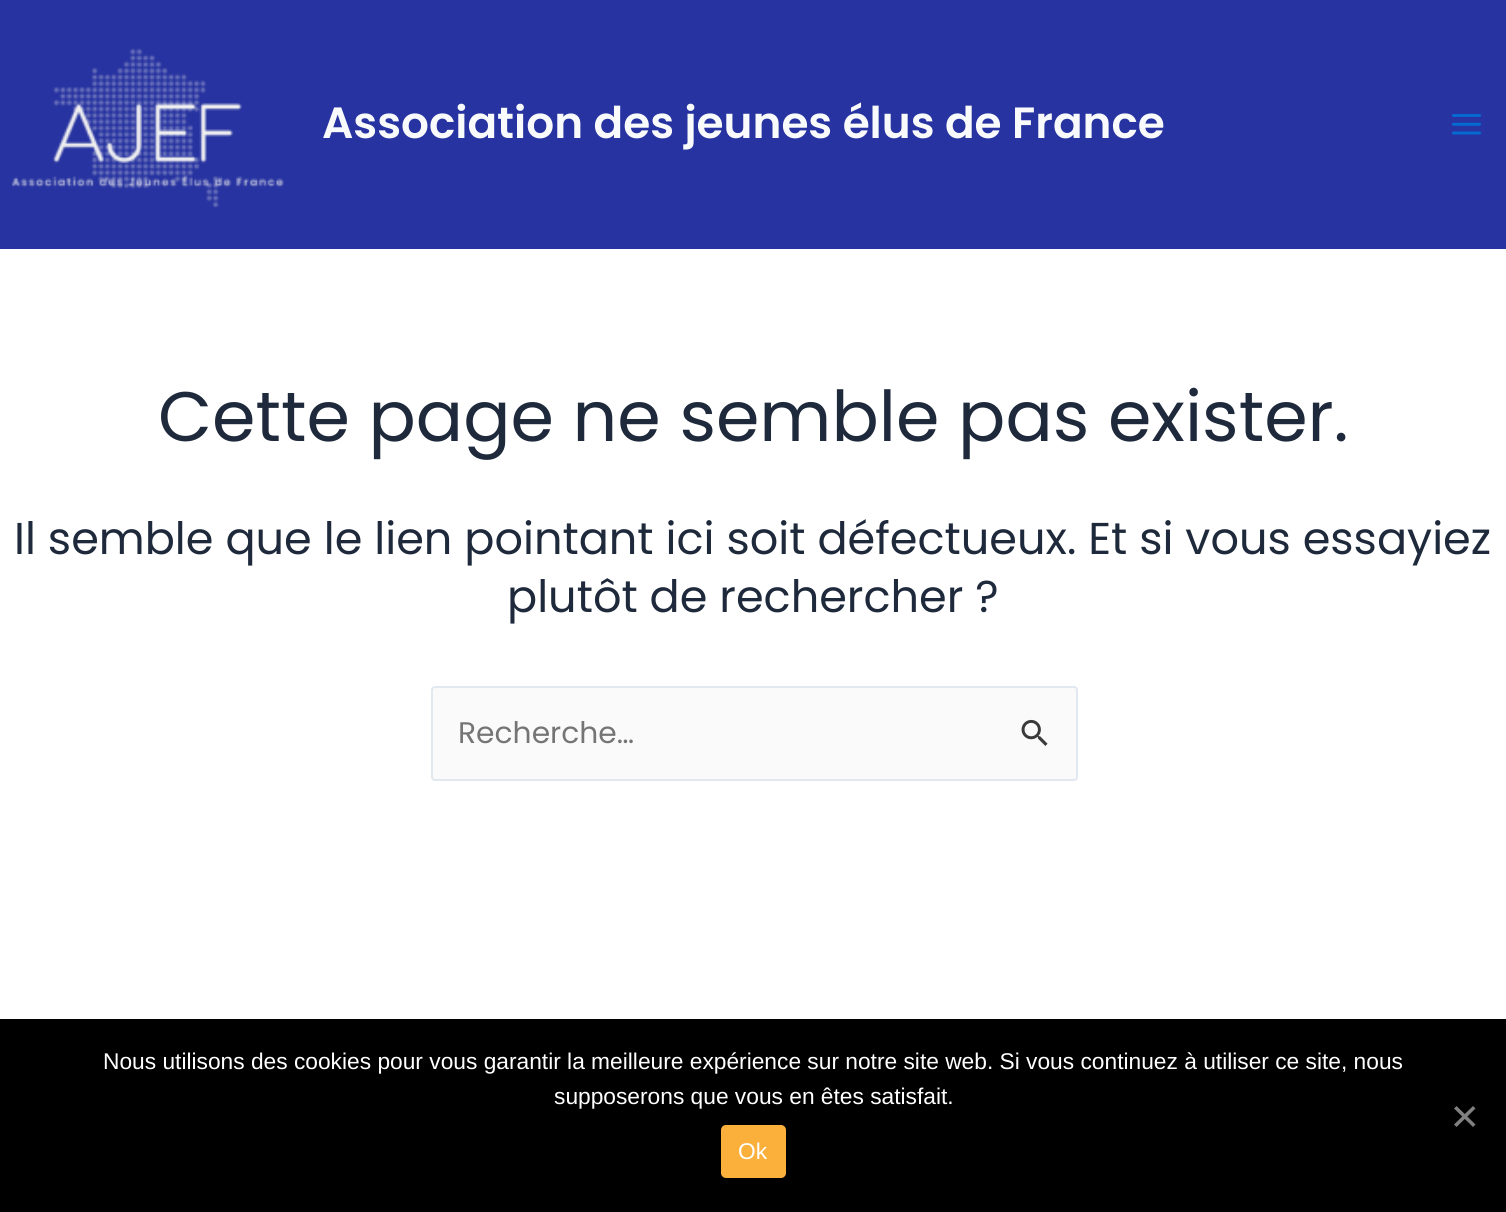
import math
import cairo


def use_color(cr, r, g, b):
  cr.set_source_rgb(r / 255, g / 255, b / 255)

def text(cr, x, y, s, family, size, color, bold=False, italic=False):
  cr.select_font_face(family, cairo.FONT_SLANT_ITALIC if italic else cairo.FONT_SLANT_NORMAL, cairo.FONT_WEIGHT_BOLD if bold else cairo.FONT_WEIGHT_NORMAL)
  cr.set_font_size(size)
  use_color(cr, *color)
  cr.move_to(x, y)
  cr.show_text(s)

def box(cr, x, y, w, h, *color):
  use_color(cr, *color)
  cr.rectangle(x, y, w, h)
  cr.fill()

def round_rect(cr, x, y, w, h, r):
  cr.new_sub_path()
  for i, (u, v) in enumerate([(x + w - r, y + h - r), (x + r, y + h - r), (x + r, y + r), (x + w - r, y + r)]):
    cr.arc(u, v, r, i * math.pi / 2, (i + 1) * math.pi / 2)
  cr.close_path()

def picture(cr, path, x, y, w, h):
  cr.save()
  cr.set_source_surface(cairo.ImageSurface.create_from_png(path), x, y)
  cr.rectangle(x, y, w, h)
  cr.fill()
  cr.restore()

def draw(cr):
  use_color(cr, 255, 255, 255)
  cr.paint()
  box(cr, 0, 0, 1506, 249, 39, 51, 160)
  picture(cr, "img_01.png", 11, 48, 273, 160)
  picture(cr, "img_02.png", 1452, 114, 29, 21)
  use_color(cr, 250, 250, 250)
  round_rect(cr, 432, 687, 645, 93, 3)
  cr.fill_preserve()
  use_color(cr, 226, 232, 240)
  cr.stroke()
  picture(cr, "img_03.png", 1021, 719, 27, 27)
  box(cr, 0, 1019, 1506, 193, 0, 0, 0)
  use_color(cr, 128, 128, 128)
  cr.new_path()
  cr.move_to(1473, 1106)
  cr.line_to(1475.5, 1108.5)
  cr.line_to(1456.5, 1127)
  cr.line_to(1454, 1124.5)
  cr.close_path()
  cr.fill()
  cr.new_path()
  cr.move_to(1454, 1108.5)
  cr.line_to(1456.5, 1106)
  cr.line_to(1475.5, 1124.5)
  cr.line_to(1473, 1127)
  cr.close_path()
  cr.fill()
  use_color(cr, 251, 176, 59)
  round_rect(cr, 721, 1125, 65, 53, 5)
  cr.fill()
  text(cr, 322, 138, "Association des jeunes élus de France", "Poppins SemiBold", 43.75, (249, 250, 251))
  text(cr, 158, 441, "Cette page ne semble pas exister.", "Poppins", 70, (30, 41, 59))
  text(cr, 14, 554, "Il semble que le lien pointant ici soit défectueux. Et si vous essayiez", "Poppins", 44.6, (30, 41, 59))
  text(cr, 507, 612, "plutôt de rechercher ?", "Poppins", 44.6, (30, 41, 59))
  text(cr, 458, 743, "Recherche…", "Poppins", 29.75, (117, 117, 117))
  text(cr, 103, 1069, "Nous utilisons des cookies pour vous garantir la meilleure expérience sur notre site web. Si vous continuez à utiliser ce site, nous", "Liberation Sans", 22.75, (255, 255, 255))
  text(cr, 554, 1104, "supposerons que vous en êtes satisfait.", "Liberation Sans", 22.75, (255, 255, 255))
  text(cr, 738, 1159, "Ok", "Liberation Sans", 22.75, (255, 255, 255))


surface = cairo.ImageSurface(cairo.FORMAT_RGB24, 1506, 1212)
cr = cairo.Context(surface)
options = cairo.FontOptions()
options.set_hint_metrics(cairo.HINT_METRICS_OFF)
options.set_hint_style(cairo.HINT_STYLE_NONE)
cr.set_font_options(options)
cr.set_miter_limit(4)
draw(cr)
surface.write_to_png("out.png")
